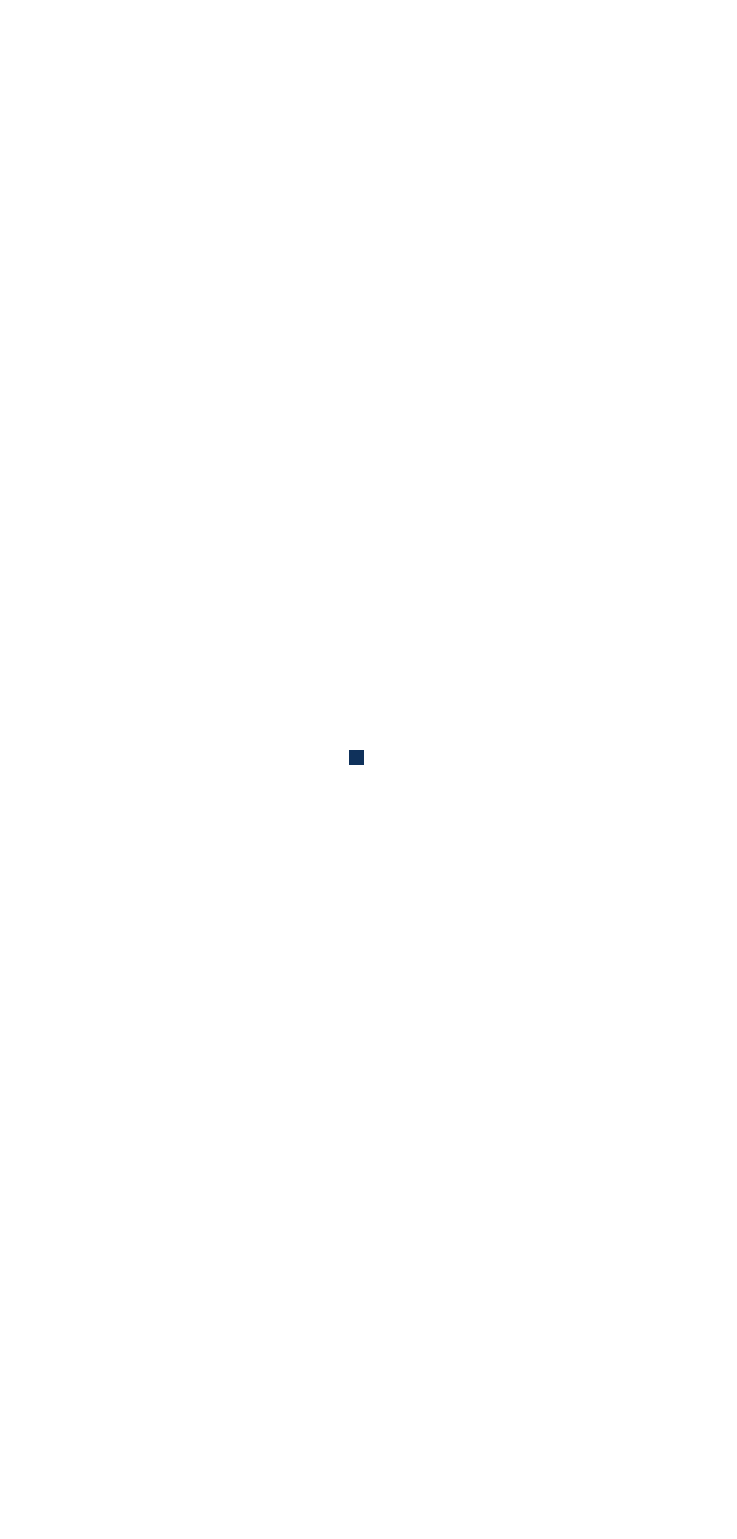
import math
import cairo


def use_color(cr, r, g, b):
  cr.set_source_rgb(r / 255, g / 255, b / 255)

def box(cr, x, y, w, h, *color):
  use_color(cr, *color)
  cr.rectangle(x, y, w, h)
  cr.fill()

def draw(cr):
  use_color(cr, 255, 255, 255)
  cr.paint()
  box(cr, 349, 750, 15, 15, 15, 49, 91)


surface = cairo.ImageSurface(cairo.FORMAT_RGB24, 737, 1539)
cr = cairo.Context(surface)
options = cairo.FontOptions()
options.set_hint_metrics(cairo.HINT_METRICS_OFF)
options.set_hint_style(cairo.HINT_STYLE_NONE)
cr.set_font_options(options)
cr.set_miter_limit(4)
draw(cr)
surface.write_to_png("out.png")
